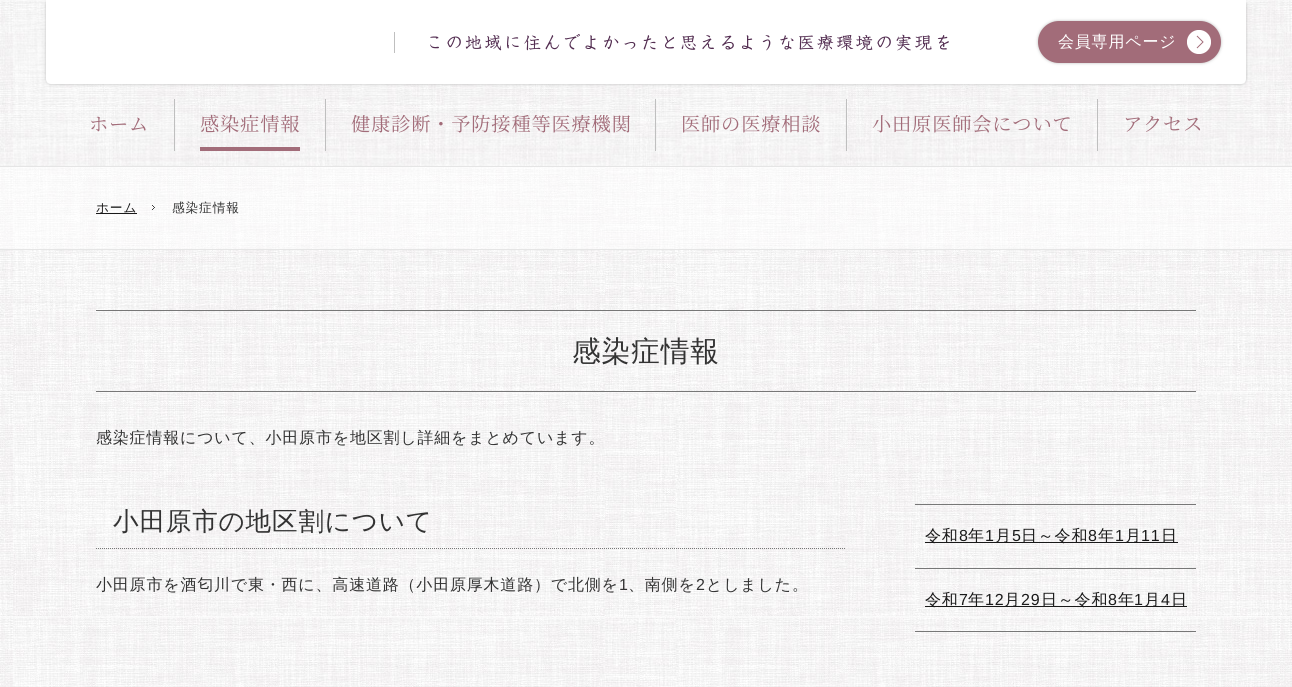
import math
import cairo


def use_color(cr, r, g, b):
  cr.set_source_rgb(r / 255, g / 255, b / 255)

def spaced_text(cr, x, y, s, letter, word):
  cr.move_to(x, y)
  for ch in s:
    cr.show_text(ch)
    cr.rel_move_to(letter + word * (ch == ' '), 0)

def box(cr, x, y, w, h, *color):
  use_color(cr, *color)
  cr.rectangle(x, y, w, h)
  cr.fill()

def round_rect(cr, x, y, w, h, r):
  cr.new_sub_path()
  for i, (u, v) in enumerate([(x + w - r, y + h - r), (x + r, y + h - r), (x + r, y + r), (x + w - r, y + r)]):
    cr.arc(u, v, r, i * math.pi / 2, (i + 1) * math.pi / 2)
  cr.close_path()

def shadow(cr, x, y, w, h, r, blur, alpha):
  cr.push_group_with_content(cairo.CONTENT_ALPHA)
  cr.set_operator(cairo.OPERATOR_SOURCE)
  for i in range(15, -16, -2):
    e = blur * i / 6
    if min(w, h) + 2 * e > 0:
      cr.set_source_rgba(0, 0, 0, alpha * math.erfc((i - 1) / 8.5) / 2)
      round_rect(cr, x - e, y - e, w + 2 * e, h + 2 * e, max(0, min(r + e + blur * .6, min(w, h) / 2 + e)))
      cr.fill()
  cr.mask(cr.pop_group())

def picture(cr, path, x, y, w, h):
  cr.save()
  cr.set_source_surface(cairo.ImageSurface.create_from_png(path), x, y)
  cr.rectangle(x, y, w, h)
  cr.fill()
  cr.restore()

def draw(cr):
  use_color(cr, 255, 255, 255)
  cr.paint()
  picture(cr, "img_01.png", 0, 0, 1292, 166)
  box(cr, 0, 166, 1292, 1, 229, 229, 229)
  use_color(cr, 188, 188, 188)
  shadow(cr, 46, 0, 1200, 84, 5, 1.5, 1)
  use_color(cr, 255, 255, 255)
  cr.new_path()
  cr.move_to(46, 0)
  cr.line_to(1246, 0)
  cr.line_to(1246, 79)
  cr.curve_to(1246, 82, 1244, 84, 1241, 84)
  cr.line_to(51, 84)
  cr.curve_to(48, 84, 46, 82, 46, 79)
  cr.close_path()
  cr.fill()
  picture(cr, "img_02.png", 430, 34, 519, 17)
  box(cr, 394, 32, 1, 21, 191, 191, 191)
  use_color(cr, 188, 188, 188)
  shadow(cr, 1038, 21, 183, 42, 21, 1.5, 1)
  use_color(cr, 162, 108, 121)
  round_rect(cr, 1038, 21, 183, 42, 21)
  cr.fill()
  picture(cr, "img_03.png", 1187, 30, 24, 24)
  box(cr, 174, 99, 1, 52, 191, 191, 191)
  box(cr, 325, 99, 1, 52, 191, 191, 191)
  box(cr, 200, 147, 100, 4, 162, 108, 121)
  box(cr, 655, 99, 1, 52, 191, 191, 191)
  box(cr, 846, 99, 1, 52, 191, 191, 191)
  box(cr, 1097, 99, 1, 52, 191, 191, 191)
  picture(cr, "img_04.png", 0, 167, 1292, 520)
  cr.set_source_rgba(1, 1, 1, 0.5)
  cr.rectangle(0, 167, 1292, 82)
  cr.fill()
  box(cr, 0, 249, 1292, 1, 229, 229, 229)
  box(cr, 96, 213, 41, 1, 26, 26, 26)
  picture(cr, "img_05.png", 152, 205, 3, 5)
  box(cr, 96, 310, 1100, 1, 119, 119, 119)
  box(cr, 96, 391, 1100, 1, 119, 119, 119)
  cr.new_path()
  cr.move_to(96, 548.5)
  cr.line_to(845, 548.5)
  cr.set_line_width(1)
  cr.set_dash([1, 1])
  cr.stroke()
  box(cr, 915, 504, 281, 1, 119, 119, 119)
  box(cr, 915, 568, 281, 1, 119, 119, 119)
  box(cr, 925, 542, 253, 1, 26, 26, 26)
  box(cr, 915, 631, 281, 1, 119, 119, 119)
  box(cr, 925, 606, 262, 1, 26, 26, 26)
  cr.select_font_face("WenQuanYi Zen Hei Medium")
  cr.set_font_size(16)
  use_color(cr, 255, 255, 255)
  spaced_text(cr, 1058, 47, "会員専用ページ", 0.8, 0)
  cr.select_font_face("Noto Serif JP ExtraLight")
  cr.set_font_size(19.25)
  use_color(cr, 162, 108, 121)
  spaced_text(cr, 89, 131, "ホーム", 0.8, 0)
  spaced_text(cr, 200, 131, "感染症情報", 0.8, 0)
  spaced_text(cr, 351, 131, "健康診断・予防接種等医療機関", 0.8, 0)
  spaced_text(cr, 681, 131, "医師の医療相談", 0.8, 0)
  spaced_text(cr, 872, 131, "小田原医師会について", 0.8, 0)
  spaced_text(cr, 1123, 131, "アクセス", 0.8, 0)
  cr.select_font_face("WenQuanYi Zen Hei Medium")
  cr.set_font_size(12.75)
  use_color(cr, 26, 26, 26)
  spaced_text(cr, 96, 212, "ホーム", 0.8, 0)
  use_color(cr, 51, 51, 51)
  spaced_text(cr, 172, 212, "感染症情報", 0.8, 0)
  cr.set_font_size(28.75)
  spaced_text(cr, 572, 361, "感染症情報", 0.8, 0)
  cr.set_font_size(16)
  spaced_text(cr, 96, 443, "感染症情報について、小田原市を地区割し詳細をまとめています。", 0.8, 0)
  cr.set_font_size(25.6)
  spaced_text(cr, 113, 530, "小田原市の地区割について", 0.8, 0)
  cr.set_font_size(16)
  spaced_text(cr, 96, 590, "小田原市を酒匂川で東・西に、高速道路（小田原厚木道路）で北側を", 0.8, 0)
  cr.select_font_face("Liberation Sans")
  spaced_text(cr, 619, 590, "1", 0.8, 0)
  cr.select_font_face("WenQuanYi Zen Hei Medium")
  spaced_text(cr, 628, 590, "、南側を", 0.8, 0)
  cr.select_font_face("Liberation Sans")
  spaced_text(cr, 696, 590, "2", 0.8, 0)
  cr.select_font_face("WenQuanYi Zen Hei Medium")
  spaced_text(cr, 706, 590, "としました。", 0.8, 0)
  use_color(cr, 26, 26, 26)
  spaced_text(cr, 925, 541, "令和", 0.8, 0)
  cr.select_font_face("Liberation Sans")
  spaced_text(cr, 959, 541, "8", 0.8, 0)
  cr.select_font_face("WenQuanYi Zen Hei Medium")
  spaced_text(cr, 968, 541, "年", 0.8, 0)
  cr.select_font_face("Liberation Sans")
  spaced_text(cr, 985, 541, "1", 0.8, 0)
  cr.select_font_face("WenQuanYi Zen Hei Medium")
  spaced_text(cr, 995, 541, "月", 0.8, 0)
  cr.select_font_face("Liberation Sans")
  spaced_text(cr, 1012, 541, "5", 0.8, 0)
  cr.select_font_face("WenQuanYi Zen Hei Medium")
  spaced_text(cr, 1021, 541, "日～令和", 0.8, 0)
  cr.select_font_face("Liberation Sans")
  spaced_text(cr, 1088, 541, "8", 0.8, 0)
  cr.select_font_face("WenQuanYi Zen Hei Medium")
  spaced_text(cr, 1098, 541, "年", 0.8, 0)
  cr.select_font_face("Liberation Sans")
  spaced_text(cr, 1115, 541, "1", 0.8, 0)
  cr.select_font_face("WenQuanYi Zen Hei Medium")
  spaced_text(cr, 1125, 541, "月", 0.8, 0)
  cr.select_font_face("Liberation Sans")
  spaced_text(cr, 1141, 541, "11", 0.8, 0)
  cr.select_font_face("WenQuanYi Zen Hei Medium")
  spaced_text(cr, 1161, 541, "日", 0.8, 0)
  spaced_text(cr, 925, 605, "令和", 0.8, 0)
  cr.select_font_face("Liberation Sans")
  spaced_text(cr, 959, 605, "7", 0.8, 0)
  cr.select_font_face("WenQuanYi Zen Hei Medium")
  spaced_text(cr, 968, 605, "年", 0.8, 0)
  cr.select_font_face("Liberation Sans")
  spaced_text(cr, 985, 605, "12", 0.8, 0)
  cr.select_font_face("WenQuanYi Zen Hei Medium")
  spaced_text(cr, 1004, 605, "月", 0.8, 0)
  cr.select_font_face("Liberation Sans")
  spaced_text(cr, 1021, 605, "29", 0.8, 0)
  cr.select_font_face("WenQuanYi Zen Hei Medium")
  spaced_text(cr, 1041, 605, "日～令和", 0.8, 0)
  cr.select_font_face("Liberation Sans")
  spaced_text(cr, 1108, 605, "8", 0.8, 0)
  cr.select_font_face("WenQuanYi Zen Hei Medium")
  spaced_text(cr, 1118, 605, "年", 0.8, 0)
  cr.select_font_face("Liberation Sans")
  spaced_text(cr, 1134, 605, "1", 0.8, 0)
  cr.select_font_face("WenQuanYi Zen Hei Medium")
  spaced_text(cr, 1144, 605, "月", 0.8, 0)
  cr.select_font_face("Liberation Sans")
  spaced_text(cr, 1161, 605, "4", 0.8, 0)
  cr.select_font_face("WenQuanYi Zen Hei Medium")
  spaced_text(cr, 1171, 605, "日", 0.8, 0)


surface = cairo.ImageSurface(cairo.FORMAT_RGB24, 1292, 687)
cr = cairo.Context(surface)
options = cairo.FontOptions()
options.set_hint_metrics(cairo.HINT_METRICS_OFF)
options.set_hint_style(cairo.HINT_STYLE_NONE)
cr.set_font_options(options)
cr.set_miter_limit(4)
draw(cr)
surface.write_to_png("out.png")
